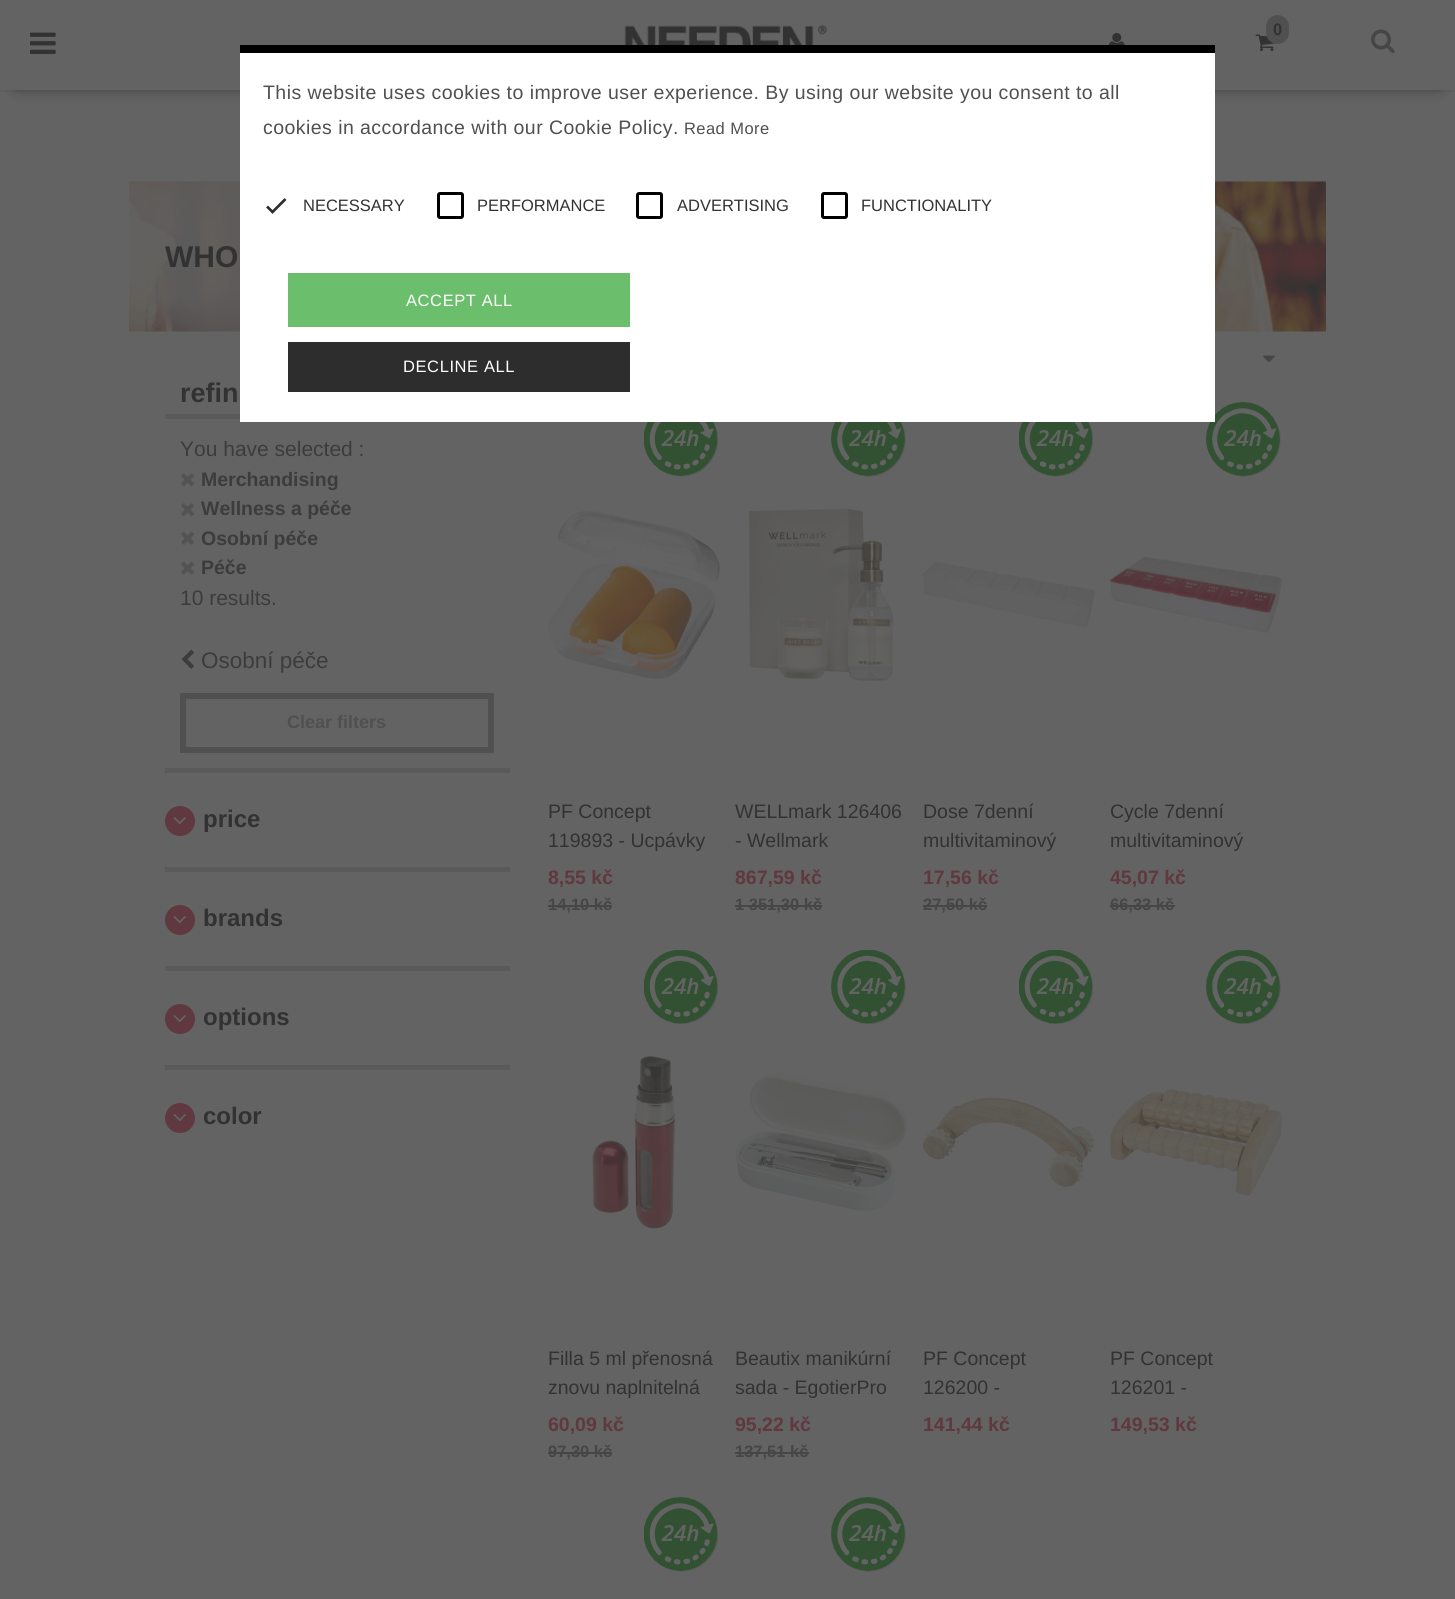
import math
import cairo


def use_color(cr, r, g, b):
  cr.set_source_rgb(r / 255, g / 255, b / 255)

def text(cr, x, y, s, family, size, color, bold=False, italic=False):
  cr.select_font_face(family, cairo.FONT_SLANT_ITALIC if italic else cairo.FONT_SLANT_NORMAL, cairo.FONT_WEIGHT_BOLD if bold else cairo.FONT_WEIGHT_NORMAL)
  cr.set_font_size(size)
  use_color(cr, *color)
  cr.move_to(x, y)
  cr.show_text(s)

def spaced_text(cr, x, y, s, letter, word):
  cr.move_to(x, y)
  for ch in s:
    cr.show_text(ch)
    cr.rel_move_to(letter + word * (ch == ' '), 0)

def box(cr, x, y, w, h, *color):
  use_color(cr, *color)
  cr.rectangle(x, y, w, h)
  cr.fill()

def round_rect(cr, x, y, w, h, r):
  cr.new_sub_path()
  for i, (u, v) in enumerate([(x + w - r, y + h - r), (x + r, y + h - r), (x + r, y + r), (x + w - r, y + r)]):
    cr.arc(u, v, r, i * math.pi / 2, (i + 1) * math.pi / 2)
  cr.close_path()

def shadow(cr, x, y, w, h, r, blur, alpha):
  cr.push_group_with_content(cairo.CONTENT_ALPHA)
  cr.set_operator(cairo.OPERATOR_SOURCE)
  for i in range(15, -16, -2):
    e = blur * i / 6
    if min(w, h) + 2 * e > 0:
      cr.set_source_rgba(0, 0, 0, alpha * math.erfc((i - 1) / 8.5) / 2)
      round_rect(cr, x - e, y - e, w + 2 * e, h + 2 * e, max(0, min(r + e + blur * .6, min(w, h) / 2 + e)))
      cr.fill()
  cr.mask(cr.pop_group())

def picture(cr, path, x, y, w, h):
  cr.save()
  cr.set_source_surface(cairo.ImageSurface.create_from_png(path), x, y)
  cr.rectangle(x, y, w, h)
  cr.fill()
  cr.restore()

def draw(cr):
  use_color(cr, 99, 99, 99)
  cr.paint()
  box(cr, 0, 90, 1455, 2, 95, 95, 95)
  cr.save()
  cr.rectangle(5, 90, 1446, 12)
  cr.clip()
  use_color(cr, 50, 50, 50)
  shadow(cr, 17, 29, 1422, 57, 0, 8, 1)
  cr.restore()
  picture(cr, "img_01.png", 30, 32, 26, 22)
  picture(cr, "img_02.png", 624, 25, 203, 20)
  picture(cr, "img_03.png", 1108, 33, 17, 12)
  picture(cr, "img_04.png", 1255, 34, 20, 17)
  use_color(cr, 80, 80, 80)
  round_rect(cr, 1266, 15, 23, 29, 11.5)
  cr.fill()
  picture(cr, "img_05.png", 1371, 29, 24, 25)
  picture(cr, "img_06.png", 129, 181, 1197, 151)
  picture(cr, "img_17.png", 1206, 402, 75, 75)
  box(cr, 240, 53, 975, 369, 255, 255, 255)
  box(cr, 240, 45, 975, 8, 0, 0, 0)
  cr.new_path()
  cr.move_to(267, 206.5)
  cr.line_to(272.5, 212)
  cr.line_to(285.5, 199)
  use_color(cr, 45, 45, 45)
  cr.set_line_width(2.7)
  cr.stroke()
  round_rect(cr, 438.5, 193.5, 24, 24, 1.5)
  use_color(cr, 0, 0, 0)
  cr.set_line_width(3)
  cr.stroke()
  round_rect(cr, 637.5, 193.5, 24, 24, 1.5)
  cr.stroke()
  round_rect(cr, 822.5, 193.5, 24, 24, 1.5)
  cr.stroke()
  box(cr, 288, 273, 342, 54, 107, 190, 107)
  box(cr, 288, 342, 342, 50, 45, 45, 45)
  box(cr, 165, 414, 75, 5, 90, 90, 90)
  picture(cr, "img_07.png", 181, 473, 14, 14)
  picture(cr, "img_07.png", 181, 503, 14, 14)
  picture(cr, "img_08.png", 181, 531, 14, 14)
  picture(cr, "img_08.png", 181, 561, 14, 14)
  picture(cr, "img_09.png", 181, 649, 13, 20)
  cr.rectangle(183, 696, 308, 54)
  use_color(cr, 80, 80, 80)
  cr.set_line_width(6)
  cr.stroke()
  box(cr, 165, 768, 345, 5, 90, 90, 90)
  use_color(cr, 95, 56, 64)
  cr.arc(180, 821, 15, 0, 2 * math.pi)
  cr.fill()
  picture(cr, "img_10.png", 173, 817, 13, 8)
  box(cr, 165, 867, 345, 5, 90, 90, 90)
  use_color(cr, 95, 56, 64)
  cr.arc(180, 920, 15, 0, 2 * math.pi)
  cr.fill()
  picture(cr, "img_10.png", 173, 916, 13, 8)
  box(cr, 165, 966, 345, 5, 90, 90, 90)
  use_color(cr, 95, 56, 64)
  cr.arc(180, 1019, 15, 0, 2 * math.pi)
  cr.fill()
  picture(cr, "img_10.png", 173, 1015, 13, 8)
  box(cr, 165, 1065, 345, 5, 90, 90, 90)
  use_color(cr, 95, 56, 64)
  cr.arc(180, 1118, 15, 0, 2 * math.pi)
  cr.fill()
  picture(cr, "img_10.png", 173, 1114, 13, 8)
  picture(cr, "img_11.png", 1263, 355, 12, 8)
  picture(cr, "img_12.png", 644, 422, 74, 55)
  picture(cr, "img_13.png", 548, 510, 172, 170)
  box(cr, 548, 905, 64, 2, 70, 70, 70)
  picture(cr, "img_14.png", 831, 422, 75, 55)
  picture(cr, "img_15.png", 749, 508, 145, 173)
  box(cr, 735, 905, 87, 2, 70, 70, 70)
  picture(cr, "img_12.png", 1019, 422, 74, 55)
  picture(cr, "img_16.png", 923, 562, 172, 66)
  box(cr, 923, 905, 64, 2, 70, 70, 70)
  picture(cr, "img_18.png", 1110, 556, 173, 77)
  box(cr, 1110, 905, 65, 2, 70, 70, 70)
  picture(cr, "img_19.png", 644, 950, 74, 74)
  picture(cr, "img_20.png", 592, 1056, 83, 173)
  box(cr, 548, 1452, 64, 2, 70, 70, 70)
  picture(cr, "img_21.png", 831, 950, 75, 74)
  picture(cr, "img_22.png", 735, 1073, 173, 138)
  box(cr, 735, 1452, 74, 2, 70, 70, 70)
  picture(cr, "img_19.png", 1019, 950, 74, 74)
  picture(cr, "img_23.png", 923, 1097, 172, 91)
  picture(cr, "img_21.png", 1206, 950, 75, 74)
  picture(cr, "img_24.png", 1110, 1089, 173, 107)
  picture(cr, "img_25.png", 644, 1497, 74, 75)
  picture(cr, "img_17.png", 831, 1497, 75, 75)
  text(cr, 1273, 35, "0", "Liberation Sans", 16.5, (50, 50, 50), bold=True)
  cr.select_font_face("Liberation Sans")
  cr.set_font_size(19.5)
  use_color(cr, 80, 80, 80)
  spaced_text(cr, 263, 99, "This website uses cookies to improve user experience. By using our website you consent to all", 0.45, 0)
  spaced_text(cr, 263, 134, "cookies in accordance with our Cookie Policy.", 0.45, 0)
  cr.set_font_size(16.5)
  spaced_text(cr, 684, 134, "Read More", 0.45, 0)
  text(cr, 303, 211, "NECESSARY", "Liberation Sans", 16.5, (50, 50, 50))
  text(cr, 477, 211, "PERFORMANCE", "Liberation Sans", 16.5, (50, 50, 50))
  text(cr, 677, 211, "ADVERTISING", "Liberation Sans", 16.5, (50, 50, 50))
  text(cr, 861, 211, "FUNCTIONALITY", "Liberation Sans", 16.5, (50, 50, 50))
  use_color(cr, 255, 255, 255)
  spaced_text(cr, 406, 306, "ACCEPT ALL", 0.6, 0)
  spaced_text(cr, 403, 372, "DECLINE ALL", 0.6, 0)
  text(cr, 165, 267, "WHO", "Liberation Sans", 30, (50, 50, 50), bold=True)
  text(cr, 180, 402, "refin", "Liberation Sans", 27, (50, 50, 50), bold=True)
  text(cr, 180, 456, "You have selected :", "Liberation Sans", 21, (60, 60, 60))
  text(cr, 201, 486, "Merchandising", "Liberation Sans", 19.5, (60, 60, 60), bold=True)
  text(cr, 201, 515, "Wellness a péče", "Liberation Sans", 19.5, (60, 60, 60), bold=True)
  text(cr, 201, 545, "Osobní péče", "Liberation Sans", 19.5, (60, 60, 60), bold=True)
  text(cr, 201, 574, "Péče", "Liberation Sans", 19.5, (60, 60, 60), bold=True)
  text(cr, 180, 605, "10 results.", "Liberation Sans", 21, (60, 60, 60))
  text(cr, 201, 668, "Osobní péče", "Liberation Sans", 22.5, (60, 60, 60))
  text(cr, 287, 728, "Clear filters", "Liberation Sans", 18, (80, 80, 80), bold=True)
  text(cr, 203, 827, "price", "Liberation Sans", 24, (50, 50, 50), bold=True)
  text(cr, 203, 926, "brands", "Liberation Sans", 24, (50, 50, 50), bold=True)
  text(cr, 203, 1025, "options", "Liberation Sans", 24, (50, 50, 50), bold=True)
  text(cr, 203, 1124, "color", "Liberation Sans", 24, (50, 50, 50), bold=True)
  text(cr, 548, 818, "PF Concept", "Liberation Sans", 19.5, (50, 50, 50))
  text(cr, 548, 847, "119893 - Ucpávky", "Liberation Sans", 19.5, (50, 50, 50))
  text(cr, 548, 884, "8,55 kč", "Liberation Sans", 19.5, (95, 56, 64), bold=True)
  text(cr, 548, 910, "14,10 kč", "Liberation Sans", 16.5, (70, 70, 70), bold=True)
  text(cr, 735, 818, "WELLmark 126406", "Liberation Sans", 19.5, (50, 50, 50))
  text(cr, 735, 847, "- Wellmark", "Liberation Sans", 19.5, (50, 50, 50))
  text(cr, 735, 884, "867,59 kč", "Liberation Sans", 19.5, (95, 56, 64), bold=True)
  text(cr, 735, 910, "1 351,30 kč", "Liberation Sans", 16.5, (70, 70, 70), bold=True)
  text(cr, 923, 818, "Dose 7denní", "Liberation Sans", 19.5, (50, 50, 50))
  text(cr, 923, 847, "multivitaminový", "Liberation Sans", 19.5, (50, 50, 50))
  text(cr, 923, 884, "17,56 kč", "Liberation Sans", 19.5, (95, 56, 64), bold=True)
  text(cr, 923, 910, "27,50 kč", "Liberation Sans", 16.5, (70, 70, 70), bold=True)
  text(cr, 1110, 818, "Cycle 7denní", "Liberation Sans", 19.5, (50, 50, 50))
  text(cr, 1110, 847, "multivitaminový", "Liberation Sans", 19.5, (50, 50, 50))
  text(cr, 1110, 884, "45,07 kč", "Liberation Sans", 19.5, (95, 56, 64), bold=True)
  text(cr, 1110, 910, "66,33 kč", "Liberation Sans", 16.5, (70, 70, 70), bold=True)
  text(cr, 548, 1365, "Filla 5 ml přenosná", "Liberation Sans", 19.5, (50, 50, 50))
  text(cr, 548, 1394, "znovu naplnitelná", "Liberation Sans", 19.5, (50, 50, 50))
  text(cr, 548, 1431, "60,09 kč", "Liberation Sans", 19.5, (95, 56, 64), bold=True)
  text(cr, 548, 1457, "97,30 kč", "Liberation Sans", 16.5, (70, 70, 70), bold=True)
  text(cr, 735, 1365, "Beautix manikúrní", "Liberation Sans", 19.5, (50, 50, 50))
  text(cr, 735, 1394, "sada - EgotierPro", "Liberation Sans", 19.5, (50, 50, 50))
  text(cr, 735, 1431, "95,22 kč", "Liberation Sans", 19.5, (95, 56, 64), bold=True)
  text(cr, 735, 1457, "137,51 kč", "Liberation Sans", 16.5, (70, 70, 70), bold=True)
  text(cr, 923, 1365, "PF Concept", "Liberation Sans", 19.5, (50, 50, 50))
  text(cr, 923, 1394, "126200 -", "Liberation Sans", 19.5, (50, 50, 50))
  text(cr, 923, 1431, "141,44 kč", "Liberation Sans", 19.5, (95, 56, 64), bold=True)
  text(cr, 1110, 1365, "PF Concept", "Liberation Sans", 19.5, (50, 50, 50))
  text(cr, 1110, 1394, "126201 -", "Liberation Sans", 19.5, (50, 50, 50))
  text(cr, 1110, 1431, "149,53 kč", "Liberation Sans", 19.5, (95, 56, 64), bold=True)


surface = cairo.ImageSurface(cairo.FORMAT_RGB24, 1455, 1599)
cr = cairo.Context(surface)
options = cairo.FontOptions()
options.set_hint_metrics(cairo.HINT_METRICS_OFF)
options.set_hint_style(cairo.HINT_STYLE_NONE)
cr.set_font_options(options)
cr.set_miter_limit(4)
draw(cr)
surface.write_to_png("out.png")
